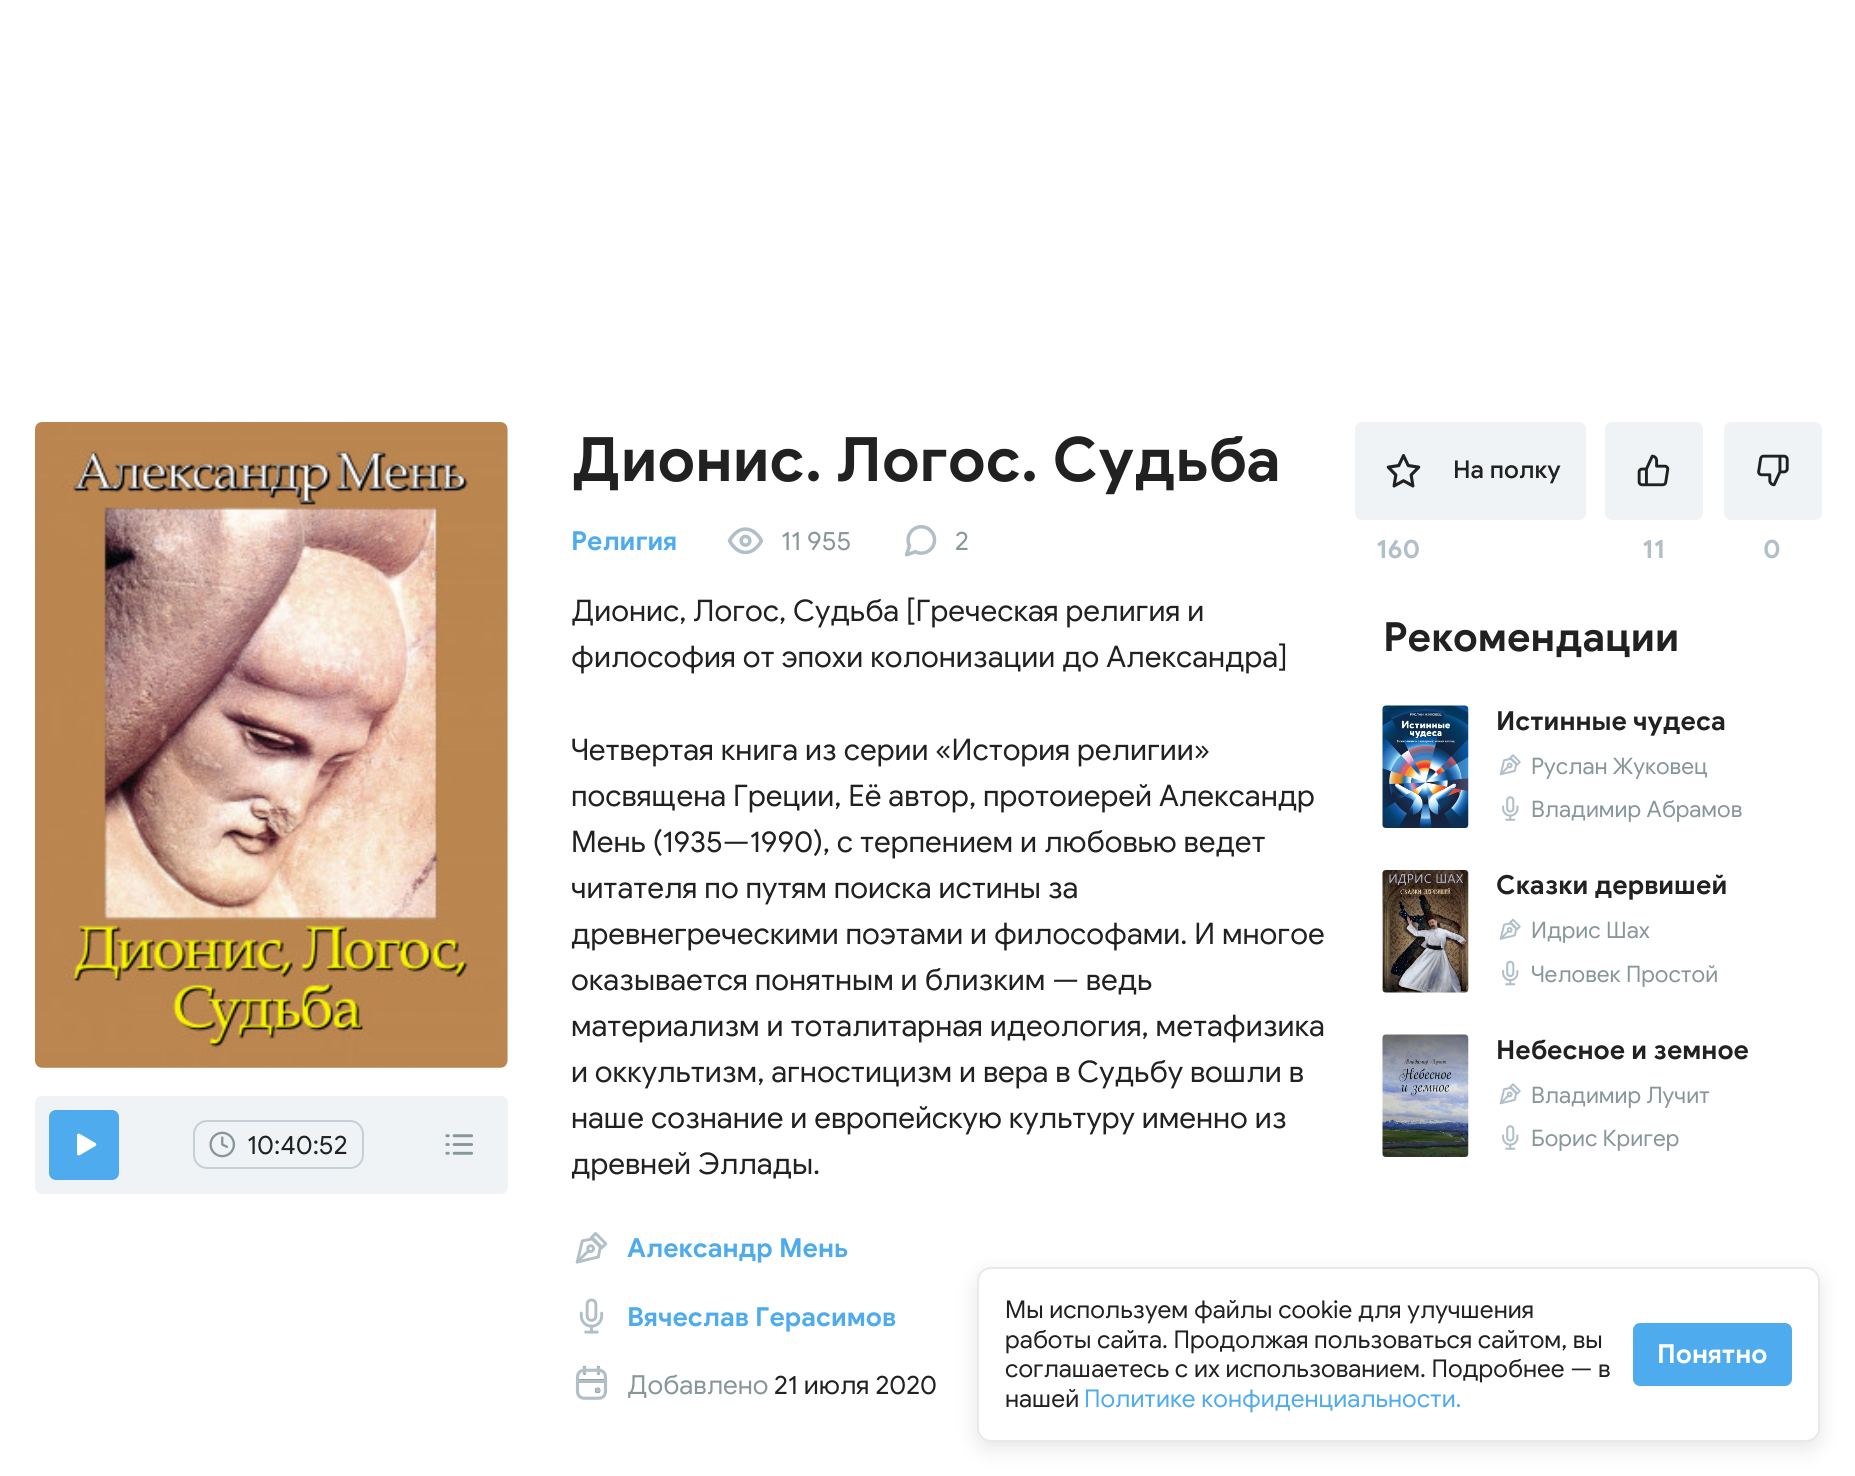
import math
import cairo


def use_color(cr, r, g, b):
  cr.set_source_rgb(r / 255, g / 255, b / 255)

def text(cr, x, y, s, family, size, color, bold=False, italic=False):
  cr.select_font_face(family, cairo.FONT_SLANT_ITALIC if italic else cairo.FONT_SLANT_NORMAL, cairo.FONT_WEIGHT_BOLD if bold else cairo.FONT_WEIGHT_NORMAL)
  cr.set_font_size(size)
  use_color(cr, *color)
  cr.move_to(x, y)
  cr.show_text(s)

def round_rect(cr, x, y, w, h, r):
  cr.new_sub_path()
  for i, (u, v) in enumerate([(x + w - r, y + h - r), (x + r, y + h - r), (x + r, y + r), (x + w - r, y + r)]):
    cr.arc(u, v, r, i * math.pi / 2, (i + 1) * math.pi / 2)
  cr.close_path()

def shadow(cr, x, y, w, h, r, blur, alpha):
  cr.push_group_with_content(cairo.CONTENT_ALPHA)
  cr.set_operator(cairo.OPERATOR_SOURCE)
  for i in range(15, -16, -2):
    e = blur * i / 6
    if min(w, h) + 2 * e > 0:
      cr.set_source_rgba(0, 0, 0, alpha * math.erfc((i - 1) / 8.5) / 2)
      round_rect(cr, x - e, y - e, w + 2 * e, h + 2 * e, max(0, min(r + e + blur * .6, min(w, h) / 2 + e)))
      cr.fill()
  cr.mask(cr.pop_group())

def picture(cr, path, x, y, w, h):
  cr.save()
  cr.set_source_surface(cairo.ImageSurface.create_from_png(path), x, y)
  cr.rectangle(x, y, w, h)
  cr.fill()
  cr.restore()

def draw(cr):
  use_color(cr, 255, 255, 255)
  cr.paint()
  use_color(cr, 240, 243, 245)
  round_rect(cr, 35, 422, 473, 646, 7)
  cr.fill()
  picture(cr, "img_01.png", 35, 422, 473, 646)
  round_rect(cr, 35, 1096, 473, 98, 7)
  cr.fill()
  use_color(cr, 78, 171, 237)
  round_rect(cr, 49, 1110, 70, 70, 7)
  cr.fill()
  picture(cr, "img_02.png", 77, 1133, 20, 23)
  round_rect(cr, 194, 1121, 169, 47, 13)
  use_color(cr, 197, 207, 213)
  cr.stroke()
  picture(cr, "img_03.png", 209, 1131, 27, 27)
  picture(cr, "img_04.png", 445, 1134, 28, 21)
  picture(cr, "img_05.png", 727, 527, 37, 28)
  picture(cr, "img_06.png", 904, 525, 33, 32)
  picture(cr, "img_07.png", 575, 1232, 33, 32)
  picture(cr, "img_08.png", 579, 1298, 25, 36)
  picture(cr, "img_09.png", 575, 1365, 33, 35)
  use_color(cr, 240, 243, 245)
  round_rect(cr, 1355, 422, 231, 98, 7)
  cr.fill()
  picture(cr, "img_10.png", 1386, 454, 35, 34)
  round_rect(cr, 1605, 422, 98, 98, 7)
  cr.fill()
  picture(cr, "img_11.png", 1637, 454, 33, 33)
  round_rect(cr, 1724, 422, 98, 98, 7)
  cr.fill()
  picture(cr, "img_12.png", 1757, 454, 32, 33)
  picture(cr, "img_13.png", 1382, 705, 87, 123)
  picture(cr, "img_14.png", 1499, 754, 22, 22)
  picture(cr, "img_15.png", 1502, 796, 17, 25)
  picture(cr, "img_16.png", 1382, 870, 87, 123)
  picture(cr, "img_17.png", 1499, 918, 22, 22)
  picture(cr, "img_18.png", 1502, 960, 17, 26)
  picture(cr, "img_19.png", 1382, 1034, 87, 123)
  picture(cr, "img_14.png", 1499, 1083, 22, 22)
  picture(cr, "img_15.png", 1502, 1125, 17, 25)
  use_color(cr, 0, 0, 0)
  shadow(cr, 977, 1274, 843, 175, 14, 10.5, 0.1)
  use_color(cr, 255, 255, 255)
  round_rect(cr, 978, 1268, 841, 173, 13)
  cr.fill_preserve()
  use_color(cr, 230, 234, 235)
  cr.stroke()
  use_color(cr, 78, 171, 237)
  round_rect(cr, 1633, 1323, 159, 63, 7)
  cr.fill()
  text(cr, 247, 1154, "10:40:52", "Google Sans", 26.25, (33, 33, 33))
  text(cr, 571, 481, "Дионис. Логос. Судьба", "Google Sans", 61.25, (33, 33, 33), bold=True)
  text(cr, 571, 550, "Религия", "Google Sans", 26.25, (78, 171, 237), bold=True)
  text(cr, 781, 550, "11 955", "Google Sans", 26.25, (135, 150, 153))
  text(cr, 955, 550, "2", "Google Sans", 26.25, (135, 150, 153))
  text(cr, 571, 621, "Дионис, Логос, Судьба [Греческая религия и", "Google Sans", 29.75, (33, 33, 33))
  text(cr, 571, 667, "философия от эпохи колонизации до Александра]", "Google Sans", 29.75, (33, 33, 33))
  text(cr, 571, 760, "Четвертая книга из серии «История религии»", "Google Sans", 29.75, (33, 33, 33))
  text(cr, 571, 806, "посвящена Греции, Её автор, протоиерей Александр", "Google Sans", 29.75, (33, 33, 33))
  text(cr, 571, 852, "Мень (1935—1990), с терпением и любовью ведет", "Google Sans", 29.75, (33, 33, 33))
  text(cr, 571, 898, "читателя по путям поиска истины за", "Google Sans", 29.75, (33, 33, 33))
  text(cr, 571, 944, "древнегреческими поэтами и философами. И многое", "Google Sans", 29.75, (33, 33, 33))
  text(cr, 571, 990, "оказывается понятным и близким — ведь", "Google Sans", 29.75, (33, 33, 33))
  text(cr, 571, 1036, "материализм и тоталитарная идеология, метафизика", "Google Sans", 29.75, (33, 33, 33))
  text(cr, 571, 1082, "и оккультизм, агностицизм и вера в Судьбу вошли в", "Google Sans", 29.75, (33, 33, 33))
  text(cr, 571, 1128, "наше сознание и европейскую культуру именно из", "Google Sans", 29.75, (33, 33, 33))
  text(cr, 571, 1174, "древней Эллады.", "Google Sans", 29.75, (33, 33, 33))
  text(cr, 627, 1257, "Александр Мень", "Google Sans", 26.25, (78, 171, 237), bold=True)
  text(cr, 627, 1326, "Вячеслав Герасимов", "Google Sans", 26.25, (78, 171, 237), bold=True)
  text(cr, 627, 1394, "Добавлено", "Google Sans", 26.25, (135, 150, 153))
  text(cr, 774, 1394, "21 июля 2020", "Google Sans", 26.25, (33, 33, 33))
  text(cr, 1453, 478, "На полку", "Google Sans Medium", 24.5, (33, 33, 33))
  text(cr, 1376, 558, "160", "Google Sans", 26.25, (177, 191, 201), bold=True)
  text(cr, 1642, 558, "11", "Google Sans", 26.25, (177, 191, 201), bold=True)
  text(cr, 1763, 558, "0", "Google Sans", 26.25, (177, 191, 201), bold=True)
  text(cr, 1383, 651, "Рекомендации", "Google Sans", 40.25, (33, 33, 33), bold=True)
  text(cr, 1496, 730, "Истинные чудеса", "Google Sans", 26.25, (33, 33, 33), bold=True)
  text(cr, 1531, 774, "Руслан Жуковец", "Google Sans", 22.75, (135, 150, 153))
  text(cr, 1531, 817, "Владимир Абрамов", "Google Sans", 22.75, (135, 150, 153))
  text(cr, 1496, 894, "Сказки дервишей", "Google Sans", 26.25, (33, 33, 33), bold=True)
  text(cr, 1531, 938, "Идрис Шах", "Google Sans", 22.75, (135, 150, 153))
  text(cr, 1531, 982, "Человек Простой", "Google Sans", 22.75, (135, 150, 153))
  text(cr, 1496, 1059, "Небесное и земное", "Google Sans", 26.25, (33, 33, 33), bold=True)
  text(cr, 1531, 1103, "Владимир Лучит", "Google Sans", 22.75, (135, 150, 153))
  text(cr, 1531, 1146, "Борис Кригер", "Google Sans", 22.75, (135, 150, 153))
  text(cr, 1005, 1318, "Мы используем файлы cookie для улучшения", "Google Sans", 24.5, (33, 33, 33))
  text(cr, 1005, 1348, "работы сайта. Продолжая пользоваться сайтом, вы", "Google Sans", 24.5, (33, 33, 33))
  text(cr, 1005, 1377, "соглашаетесь с их использованием. Подробнее — в", "Google Sans", 24.5, (33, 33, 33))
  text(cr, 1005, 1407, "нашей", "Google Sans", 24.5, (33, 33, 33))
  text(cr, 1084, 1407, "Политике конфиденциальности.", "Google Sans", 24.5, (78, 171, 237))
  text(cr, 1657, 1363, "Понятно", "Google Sans", 26.25, (255, 255, 255), bold=True)


surface = cairo.ImageSurface(cairo.FORMAT_RGB24, 1855, 1476)
cr = cairo.Context(surface)
options = cairo.FontOptions()
options.set_hint_metrics(cairo.HINT_METRICS_OFF)
options.set_hint_style(cairo.HINT_STYLE_NONE)
cr.set_font_options(options)
cr.set_miter_limit(4)
draw(cr)
surface.write_to_png("out.png")
